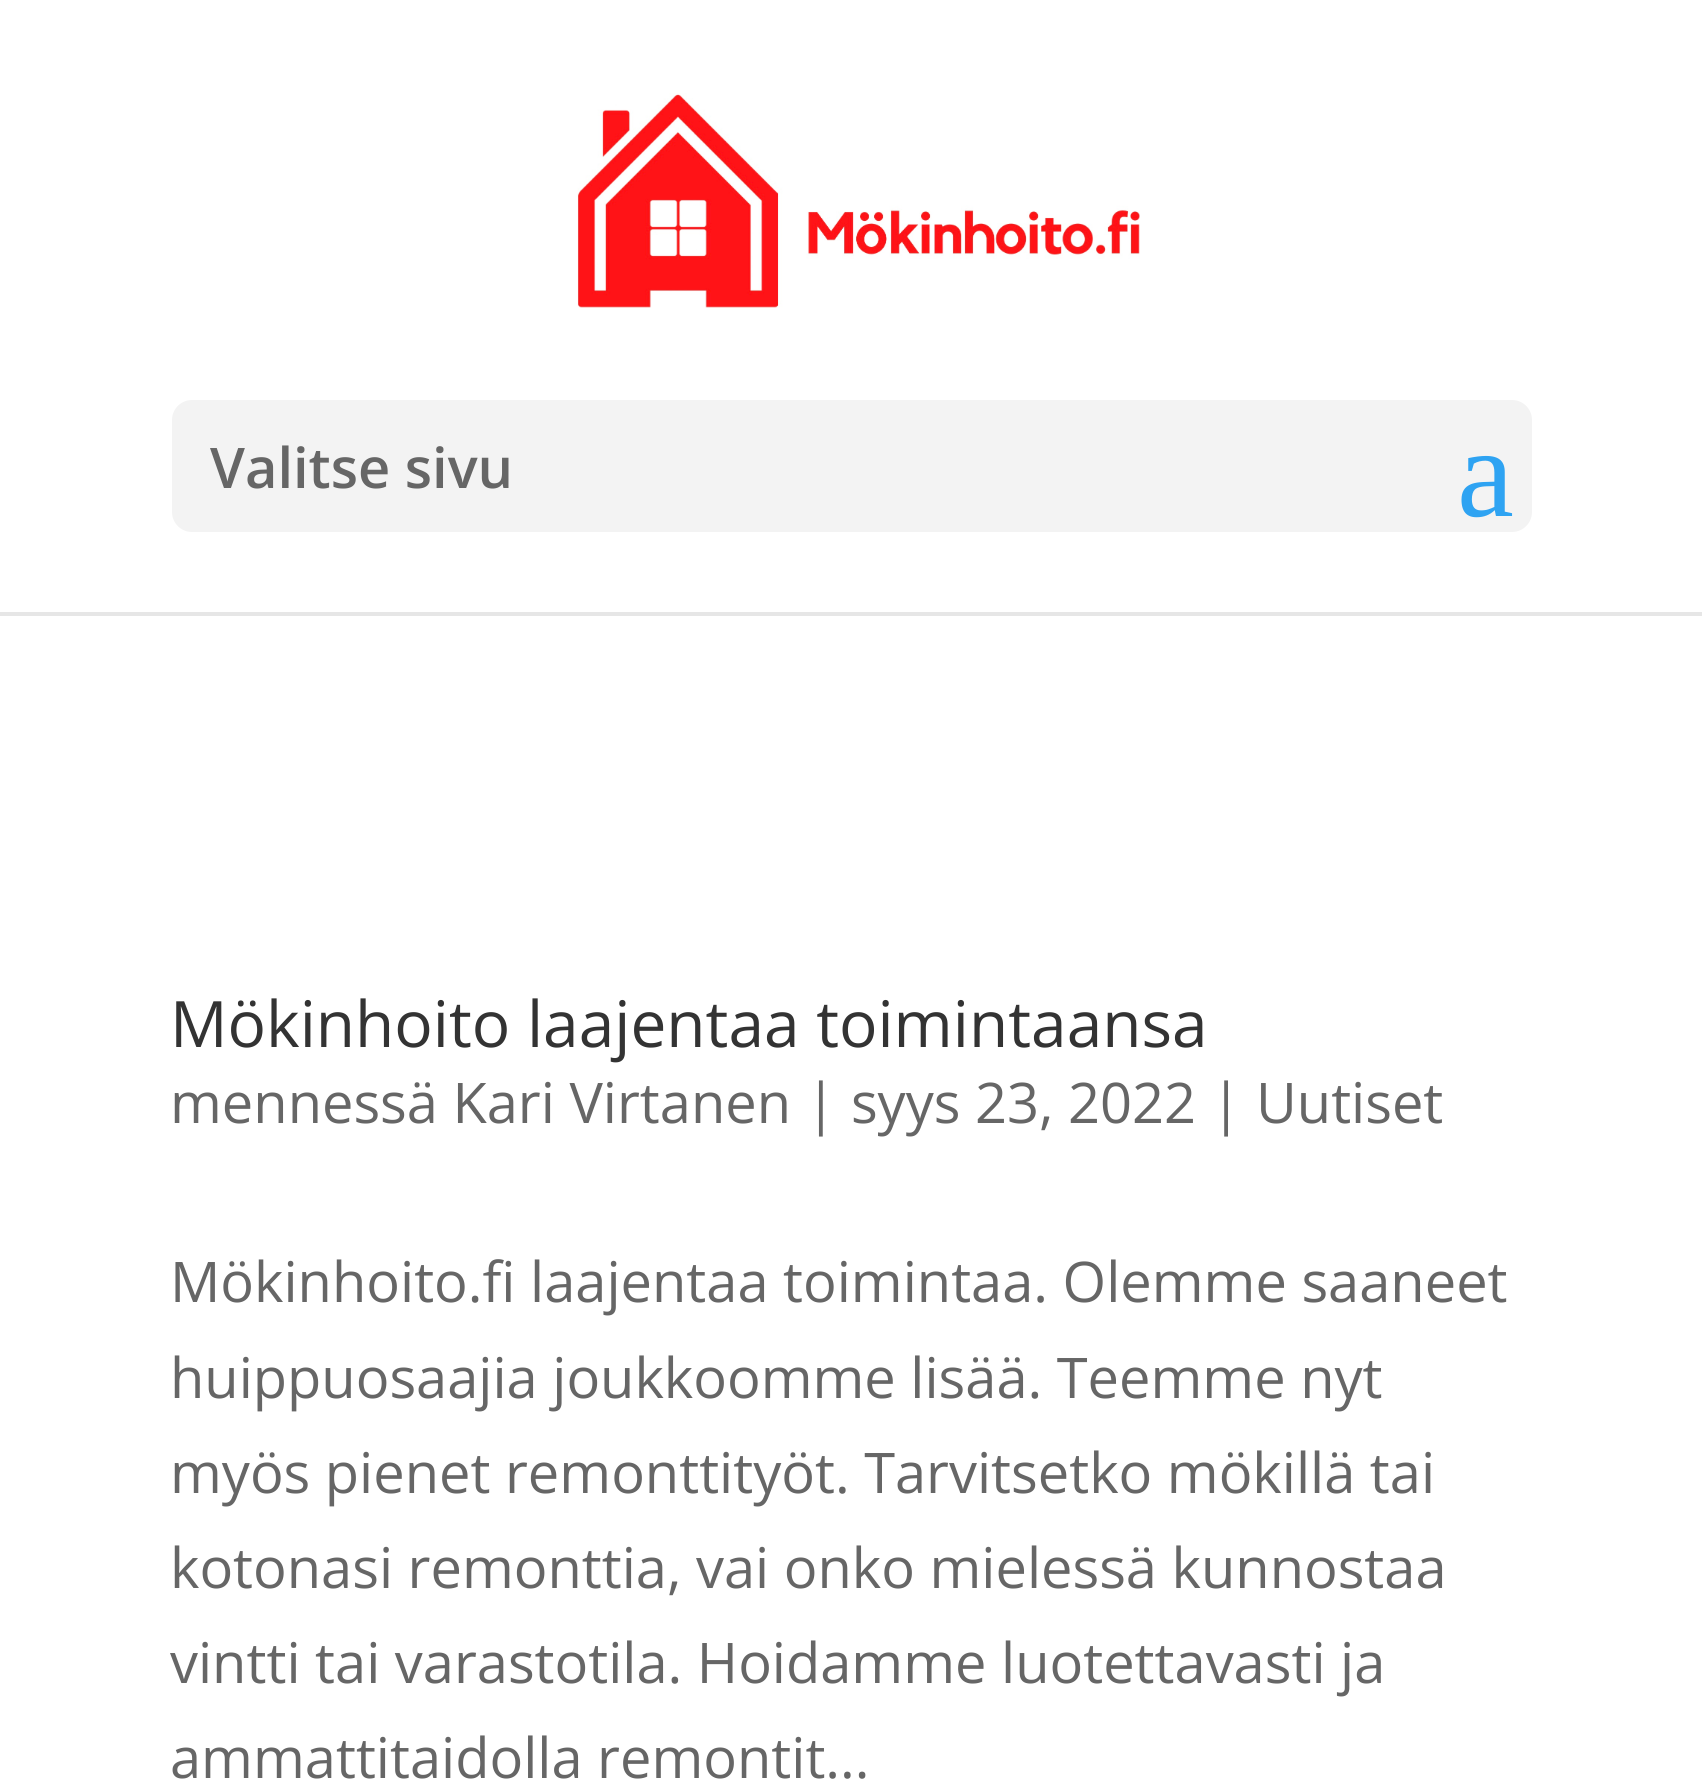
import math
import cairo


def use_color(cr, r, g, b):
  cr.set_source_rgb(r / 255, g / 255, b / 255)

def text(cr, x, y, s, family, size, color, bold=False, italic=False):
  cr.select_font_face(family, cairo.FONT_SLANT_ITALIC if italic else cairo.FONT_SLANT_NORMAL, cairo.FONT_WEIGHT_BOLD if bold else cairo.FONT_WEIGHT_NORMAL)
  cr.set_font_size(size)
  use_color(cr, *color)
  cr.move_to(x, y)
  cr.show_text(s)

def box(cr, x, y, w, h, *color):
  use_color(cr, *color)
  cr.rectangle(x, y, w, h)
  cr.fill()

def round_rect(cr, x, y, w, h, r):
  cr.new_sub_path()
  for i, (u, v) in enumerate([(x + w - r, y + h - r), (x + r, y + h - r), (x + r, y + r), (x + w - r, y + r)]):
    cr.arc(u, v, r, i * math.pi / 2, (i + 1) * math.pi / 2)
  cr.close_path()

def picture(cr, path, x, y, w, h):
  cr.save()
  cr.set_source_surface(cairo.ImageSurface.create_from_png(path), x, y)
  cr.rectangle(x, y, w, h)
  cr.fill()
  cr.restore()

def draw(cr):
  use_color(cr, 255, 255, 255)
  cr.paint()
  box(cr, 0, 612, 1702, 4, 230, 230, 230)
  picture(cr, "img_01.png", 577, 93, 563, 215)
  use_color(cr, 243, 243, 243)
  round_rect(cr, 172, 400, 1360, 132, 20)
  cr.fill()
  text(cr, 210, 488, "Valitse sivu", "Open Sans SemiBold", 56, (102, 102, 102))
  text(cr, 1457, 516, "a", "Liberation Serif", 128, (46, 163, 242))
  text(cr, 170, 1047, "Mökinhoito laajentaa toimintaansa", "Open Sans", 64, (51, 51, 51))
  text(cr, 170, 1123, "mennessä Kari Virtanen | syys 23, 2022 | Uutiset", "Open Sans", 56, (102, 102, 102))
  text(cr, 170, 1302, "Mökinhoito.fi laajentaa toimintaa. Olemme saaneet", "Open Sans", 56, (102, 102, 102))
  text(cr, 170, 1398, "huippuosaajia joukkoomme lisää. Teemme nyt", "Open Sans", 56, (102, 102, 102))
  text(cr, 170, 1493, "myös pienet remonttityöt. Tarvitsetko mökillä tai", "Open Sans", 56, (102, 102, 102))
  text(cr, 170, 1588, "kotonasi remonttia, vai onko mielessä kunnostaa", "Open Sans", 56, (102, 102, 102))
  text(cr, 170, 1683, "vintti tai varastotila. Hoidamme luotettavasti ja", "Open Sans", 56, (102, 102, 102))
  text(cr, 170, 1778, "ammattitaidolla remontit...", "Open Sans", 56, (102, 102, 102))


surface = cairo.ImageSurface(cairo.FORMAT_RGB24, 1702, 1779)
cr = cairo.Context(surface)
options = cairo.FontOptions()
options.set_hint_metrics(cairo.HINT_METRICS_OFF)
options.set_hint_style(cairo.HINT_STYLE_NONE)
cr.set_font_options(options)
cr.set_miter_limit(4)
draw(cr)
surface.write_to_png("out.png")
